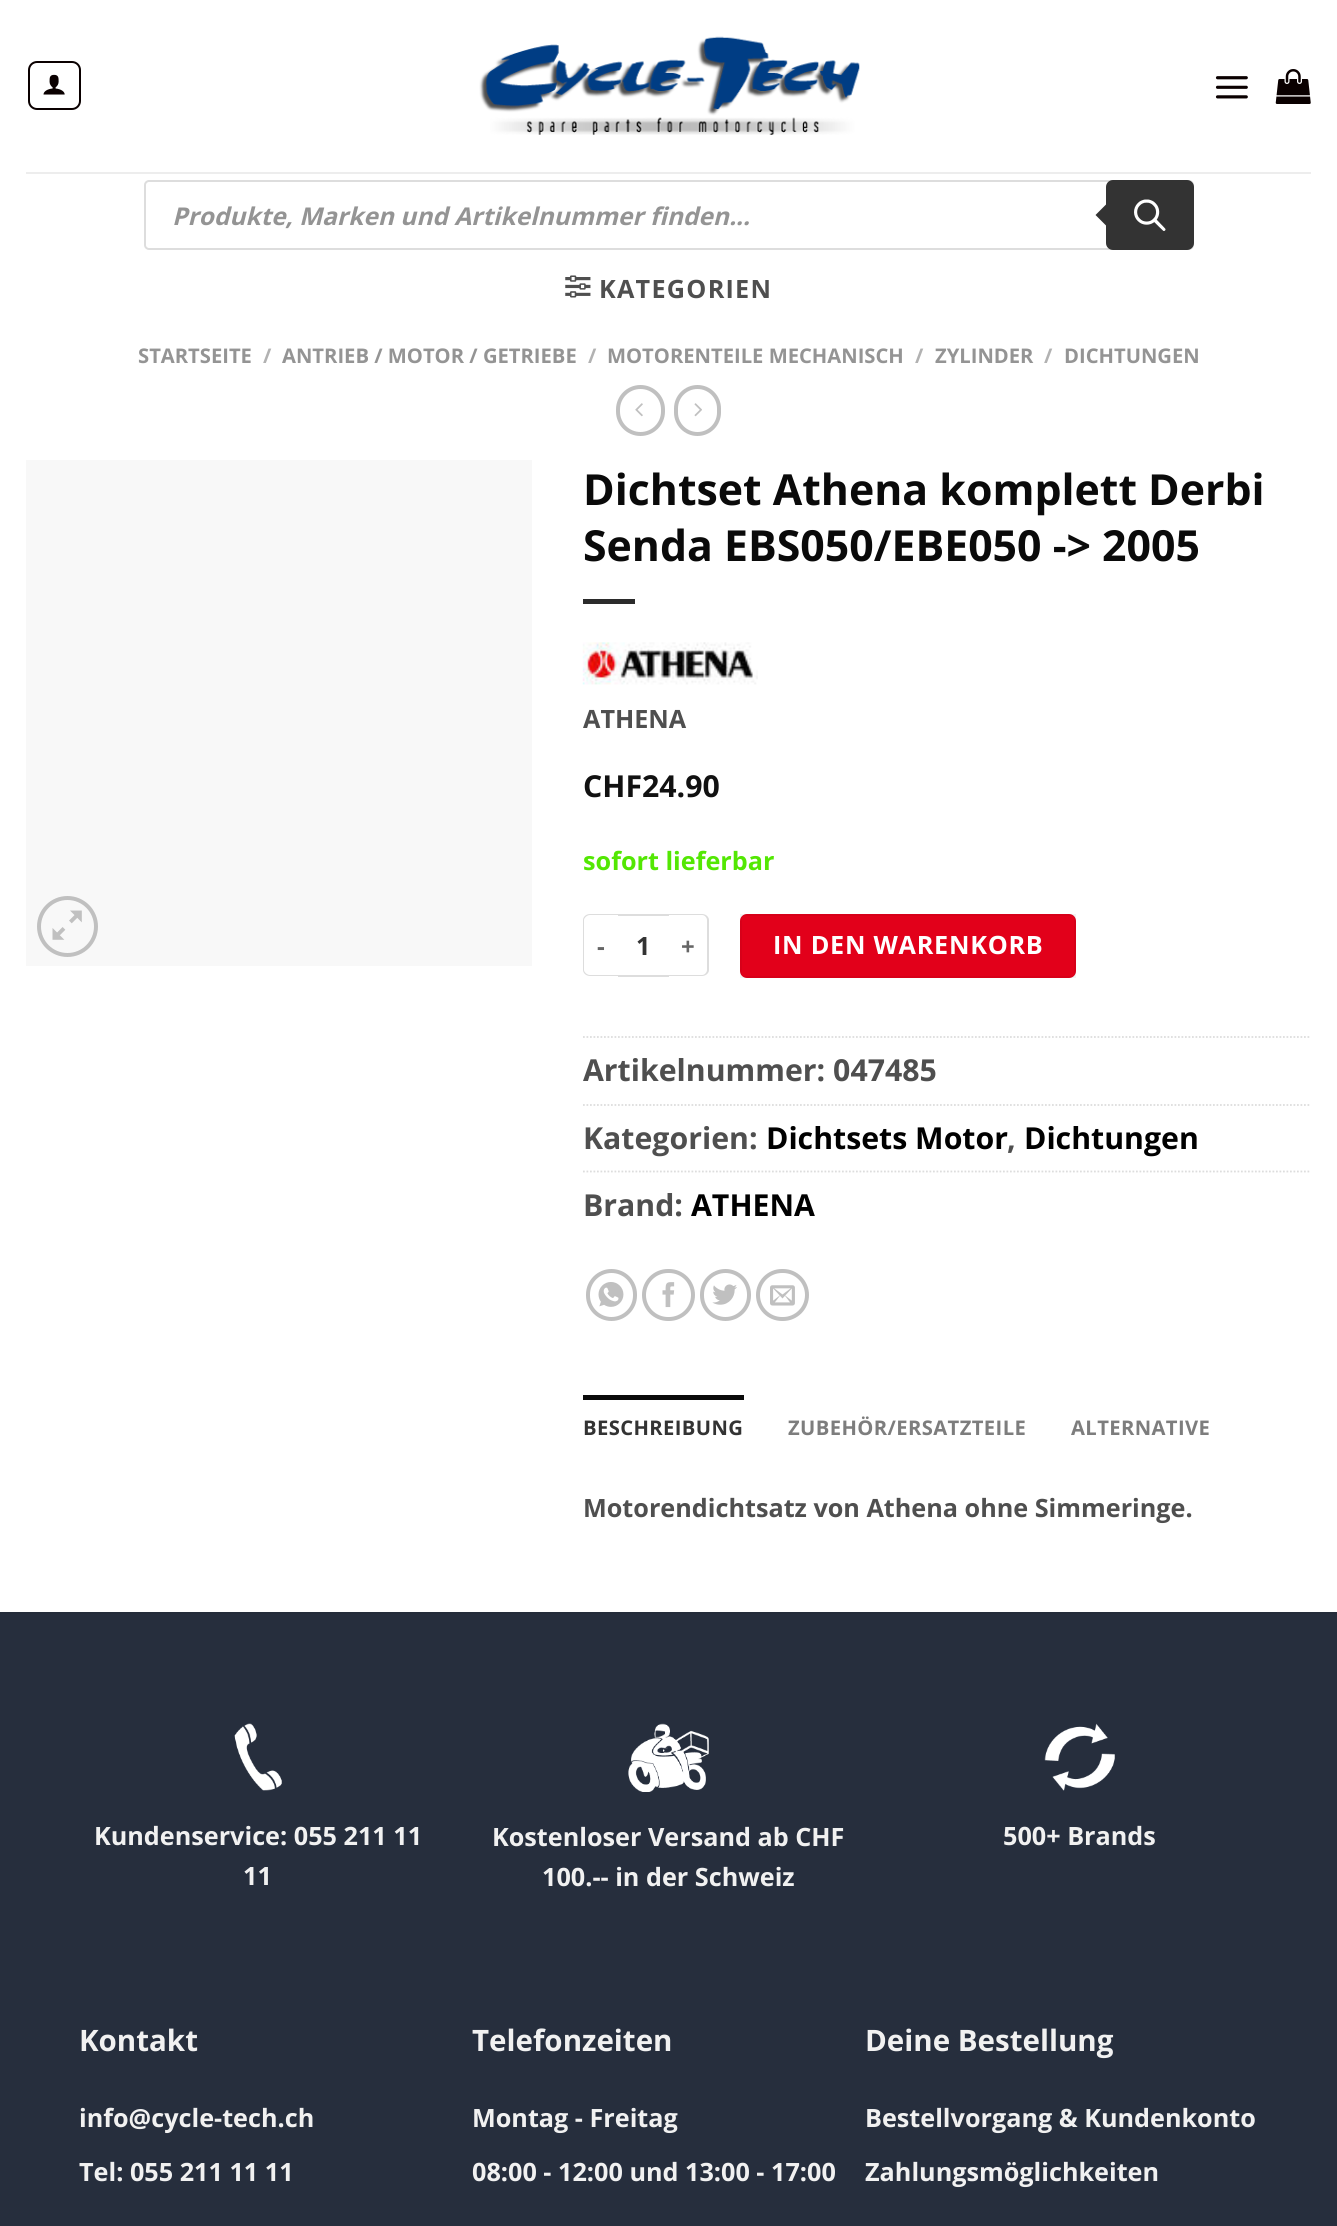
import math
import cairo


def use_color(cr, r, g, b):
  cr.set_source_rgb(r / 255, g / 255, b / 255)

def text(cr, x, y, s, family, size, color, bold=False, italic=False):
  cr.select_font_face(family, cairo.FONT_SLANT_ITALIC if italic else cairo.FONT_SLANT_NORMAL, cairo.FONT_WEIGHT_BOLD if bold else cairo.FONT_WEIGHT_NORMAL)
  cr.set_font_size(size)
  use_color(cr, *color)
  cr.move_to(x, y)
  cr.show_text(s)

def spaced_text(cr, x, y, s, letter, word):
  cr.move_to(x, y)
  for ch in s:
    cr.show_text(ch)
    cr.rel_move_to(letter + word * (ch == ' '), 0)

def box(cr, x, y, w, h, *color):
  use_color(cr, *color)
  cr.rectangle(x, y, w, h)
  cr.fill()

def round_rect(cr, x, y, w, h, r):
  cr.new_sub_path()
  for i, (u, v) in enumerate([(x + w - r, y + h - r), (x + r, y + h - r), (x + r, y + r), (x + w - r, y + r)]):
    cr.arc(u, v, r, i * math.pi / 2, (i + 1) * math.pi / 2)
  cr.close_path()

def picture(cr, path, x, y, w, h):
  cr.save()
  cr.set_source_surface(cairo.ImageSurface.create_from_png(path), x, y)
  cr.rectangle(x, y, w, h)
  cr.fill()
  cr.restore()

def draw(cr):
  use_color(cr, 255, 255, 255)
  cr.paint()
  round_rect(cr, 29, 62, 51, 47, 8)
  use_color(cr, 10, 0, 0)
  cr.stroke()
  picture(cr, "img_01.png", 43, 74, 22, 21)
  picture(cr, "img_02.png", 479, 36, 381, 99)
  picture(cr, "img_03.png", 1215, 76, 33, 23)
  picture(cr, "img_04.png", 1275, 69, 36, 35)
  box(cr, 26, 172, 1285, 2, 237, 237, 237)
  round_rect(cr, 145, 181, 1048, 68, 4)
  use_color(cr, 221, 221, 221)
  cr.stroke()
  use_color(cr, 51, 51, 51)
  round_rect(cr, 1106, 180, 88, 70, 7)
  cr.fill()
  cr.new_path()
  cr.move_to(1109.5, 201)
  cr.line_to(1109.5, 229)
  cr.line_to(1095.5, 215)
  cr.close_path()
  cr.fill()
  picture(cr, "img_05.png", 1134, 199, 32, 32)
  picture(cr, "img_06.png", 565, 275, 26, 23)
  round_rect(cr, 618, 387, 45, 47, 22.5)
  use_color(cr, 192, 192, 192)
  cr.set_line_width(4)
  cr.stroke()
  picture(cr, "img_07.png", 635, 403, 8, 14)
  round_rect(cr, 676, 387, 43, 47, 21.5)
  cr.stroke()
  picture(cr, "img_08.png", 694, 403, 8, 14)
  box(cr, 26, 460, 506, 506, 248, 248, 248)
  cr.arc(67.5, 926.5, 28.5, 0, 2 * math.pi)
  use_color(cr, 192, 192, 192)
  cr.stroke()
  picture(cr, "img_09.png", 52, 910, 30, 30)
  box(cr, 583, 599, 52, 5, 43, 43, 43)
  picture(cr, "img_10.png", 582, 642, 176, 43)
  use_color(cr, 221, 221, 221)
  cr.set_fill_rule(cairo.FILL_RULE_EVEN_ODD)
  cr.new_path()
  cr.move_to(590, 914)
  cr.line_to(618, 914)
  cr.line_to(618, 976)
  cr.line_to(590, 976)
  cr.curve_to(586, 976, 583, 973, 583, 970)
  cr.line_to(583, 920)
  cr.curve_to(583, 917, 586, 914, 590, 914)
  cr.close_path()
  cr.move_to(590, 915)
  cr.line_to(618, 915)
  cr.line_to(618, 975)
  cr.line_to(590, 975)
  cr.curve_to(587, 975, 584, 972, 584, 970)
  cr.line_to(584, 920)
  cr.curve_to(584, 918, 587, 915, 590, 915)
  cr.close_path()
  cr.fill()
  box(cr, 618, 914, 51, 2, 221, 221, 221)
  box(cr, 618, 975, 51, 2, 221, 221, 221)
  cr.new_path()
  cr.move_to(668, 914)
  cr.line_to(702, 914)
  cr.curve_to(706, 914, 709, 917, 709, 920)
  cr.line_to(709, 970)
  cr.curve_to(709, 973, 706, 976, 702, 976)
  cr.line_to(668, 976)
  cr.close_path()
  cr.move_to(668, 915)
  cr.line_to(702, 915)
  cr.curve_to(705, 915, 707, 918, 707, 920)
  cr.line_to(707, 970)
  cr.curve_to(707, 972, 705, 975, 702, 975)
  cr.line_to(668, 975)
  cr.close_path()
  cr.fill()
  use_color(cr, 226, 0, 26)
  round_rect(cr, 740, 914, 336, 64, 7)
  cr.fill()
  cr.rectangle(741, 915, 334, 62)
  cr.set_source_rgba(0, 0, 0, 0.05)
  cr.set_line_width(2)
  cr.stroke()
  cr.new_path()
  cr.move_to(583, 1037)
  cr.line_to(1311, 1037)
  use_color(cr, 221, 221, 221)
  cr.set_line_width(1.8)
  cr.set_dash([1.75, 1.75])
  cr.stroke()
  cr.new_path()
  cr.move_to(583, 1105)
  cr.line_to(1311, 1105)
  cr.stroke()
  cr.new_path()
  cr.move_to(583, 1171.5)
  cr.line_to(1311, 1171.5)
  cr.stroke()
  round_rect(cr, 588, 1271, 47, 48, 23.5)
  use_color(cr, 192, 192, 192)
  cr.set_line_width(4)
  cr.set_dash([])
  cr.stroke()
  picture(cr, "img_11.png", 598, 1282, 26, 25)
  round_rect(cr, 644, 1271, 49, 48, 24)
  cr.stroke()
  picture(cr, "img_12.png", 662, 1282, 13, 26)
  round_rect(cr, 702, 1271, 47, 48, 23.5)
  cr.stroke()
  picture(cr, "img_13.png", 712, 1284, 25, 21)
  round_rect(cr, 758, 1271, 49, 48, 24)
  cr.stroke()
  picture(cr, "img_14.png", 770, 1285, 25, 21)
  box(cr, 583, 1395, 161, 5, 10, 10, 10)
  box(cr, 0, 1614, 1337, 612, 38, 46, 61)
  box(cr, 0, 1612, 1337, 2, 36, 44, 58)
  picture(cr, "img_15.png", 234, 1723, 48, 68)
  picture(cr, "img_16.png", 628, 1723, 81, 69)
  picture(cr, "img_17.png", 1044, 1723, 71, 68)
  text(cr, 172, 225, "Produkte, Marken und Artikelnummer finden...", "Open Sans", 24.5, (148, 148, 148), bold=True, italic=True)
  cr.select_font_face("Open Sans", cairo.FONT_SLANT_NORMAL, cairo.FONT_WEIGHT_BOLD)
  cr.set_font_size(25.2)
  use_color(cr, 79, 79, 79)
  spaced_text(cr, 599, 298, "KATEGORIEN", 1.25, 0)
  text(cr, 138, 363, "STARTSEITE", "Open Sans", 20.2, (148, 148, 148), bold=True)
  text(cr, 263, 363, "/", "Open Sans", 20.2, (178, 178, 178), bold=True)
  text(cr, 282, 363, "ANTRIEB / MOTOR / GETRIEBE", "Open Sans", 20.2, (148, 148, 148), bold=True)
  text(cr, 588, 363, "/", "Open Sans", 20.2, (178, 178, 178), bold=True)
  text(cr, 607, 363, "MOTORENTEILE MECHANISCH", "Open Sans", 20.2, (148, 148, 148), bold=True)
  text(cr, 915, 363, "/", "Open Sans", 20.2, (178, 178, 178), bold=True)
  text(cr, 935, 363, "ZYLINDER", "Open Sans", 20.2, (148, 148, 148), bold=True)
  text(cr, 1044, 363, "/", "Open Sans", 20.2, (178, 178, 178), bold=True)
  text(cr, 1064, 363, "DICHTUNGEN", "Open Sans", 20.2, (148, 148, 148), bold=True)
  text(cr, 583, 505, "Dichtset Athena komplett Derbi", "Open Sans", 42.8, (10, 10, 10), bold=True)
  text(cr, 583, 561, "Senda EBS050/EBE050 -> 2005", "Open Sans", 42.8, (10, 10, 10), bold=True)
  text(cr, 583, 728, "ATHENA", "Open Sans", 25.2, (79, 79, 79), bold=True)
  text(cr, 583, 797, "CHF24.90", "Open Sans", 30.25, (17, 17, 17), bold=True)
  text(cr, 583, 870, "sofort lieferbar", "Open Sans", 25.2, (83, 231, 3), bold=True)
  cr.set_font_size(24)
  use_color(cr, 102, 102, 102)
  spaced_text(cr, 597, 955, "-", 1, 0)
  text(cr, 636, 955, "1", "Open Sans", 25.2, (51, 51, 51), bold=True)
  cr.set_font_size(24)
  use_color(cr, 102, 102, 102)
  spaced_text(cr, 681, 955, "+", 1, 0)
  cr.set_font_size(25.2)
  use_color(cr, 255, 255, 255)
  spaced_text(cr, 773, 954, "IN DEN WARENKORB", 0.75, 0)
  text(cr, 583, 1081, "Artikelnummer: 047485", "Open Sans", 30.25, (79, 79, 79), bold=True)
  text(cr, 583, 1149, "Kategorien:", "Open Sans", 30.25, (79, 79, 79), bold=True)
  text(cr, 766, 1149, "Dichtsets Motor", "Open Sans", 30.25, (0, 0, 0), bold=True)
  text(cr, 1007, 1149, ",", "Open Sans", 30.25, (79, 79, 79), bold=True)
  text(cr, 1024, 1149, "Dichtungen", "Open Sans", 30.25, (0, 0, 0), bold=True)
  text(cr, 583, 1216, "Brand:", "Open Sans", 30.25, (79, 79, 79), bold=True)
  text(cr, 691, 1216, "ATHENA", "Open Sans", 30.25, (0, 0, 0), bold=True)
  cr.set_font_size(20.2)
  use_color(cr, 51, 51, 51)
  spaced_text(cr, 583, 1435, "BESCHREIBUNG", 0.4, 0)
  use_color(cr, 125, 125, 125)
  spaced_text(cr, 788, 1435, "ZUBEHÖR/ERSATZTEILE", 0.4, 0)
  spaced_text(cr, 1071, 1435, "ALTERNATIVE", 0.4, 0)
  text(cr, 583, 1517, "Motorendichtsatz von Athena ohne Simmeringe.", "Open Sans", 25.2, (79, 79, 79), bold=True)
  text(cr, 94, 1845, "Kundenservice: 055 211 11", "Open Sans", 25.2, (241, 241, 241), bold=True)
  text(cr, 243, 1885, "11", "Open Sans", 25.2, (241, 241, 241), bold=True)
  text(cr, 492, 1846, "Kostenloser Versand ab CHF", "Open Sans", 25.2, (241, 241, 241), bold=True)
  text(cr, 542, 1886, "100.-- in der Schweiz", "Open Sans", 25.2, (241, 241, 241), bold=True)
  text(cr, 1003, 1845, "500+ Brands", "Open Sans", 25.2, (241, 241, 241), bold=True)
  text(cr, 79, 2051, "Kontakt", "Open Sans", 29.5, (241, 241, 241), bold=True)
  text(cr, 79, 2127, "info@cycle-tech.ch", "Open Sans", 25.2, (241, 241, 241), bold=True)
  text(cr, 79, 2181, "Tel: 055 211 11 11", "Open Sans", 25.2, (241, 241, 241), bold=True)
  text(cr, 472, 2051, "Telefonzeiten", "Open Sans", 29.5, (241, 241, 241), bold=True)
  text(cr, 472, 2127, "Montag - Freitag", "Open Sans", 25.2, (241, 241, 241), bold=True)
  text(cr, 472, 2181, "08:00 - 12:00 und 13:00 - 17:00", "Open Sans", 25.2, (241, 241, 241), bold=True)
  text(cr, 865, 2051, "Deine Bestellung", "Open Sans", 29.5, (241, 241, 241), bold=True)
  text(cr, 865, 2127, "Bestellvorgang & Kundenkonto", "Open Sans", 25.2, (241, 241, 241), bold=True)
  text(cr, 865, 2181, "Zahlungsmöglichkeiten", "Open Sans", 25.2, (241, 241, 241), bold=True)


surface = cairo.ImageSurface(cairo.FORMAT_RGB24, 1337, 2226)
cr = cairo.Context(surface)
options = cairo.FontOptions()
options.set_hint_metrics(cairo.HINT_METRICS_OFF)
options.set_hint_style(cairo.HINT_STYLE_NONE)
cr.set_font_options(options)
cr.set_miter_limit(4)
draw(cr)
surface.write_to_png("out.png")
